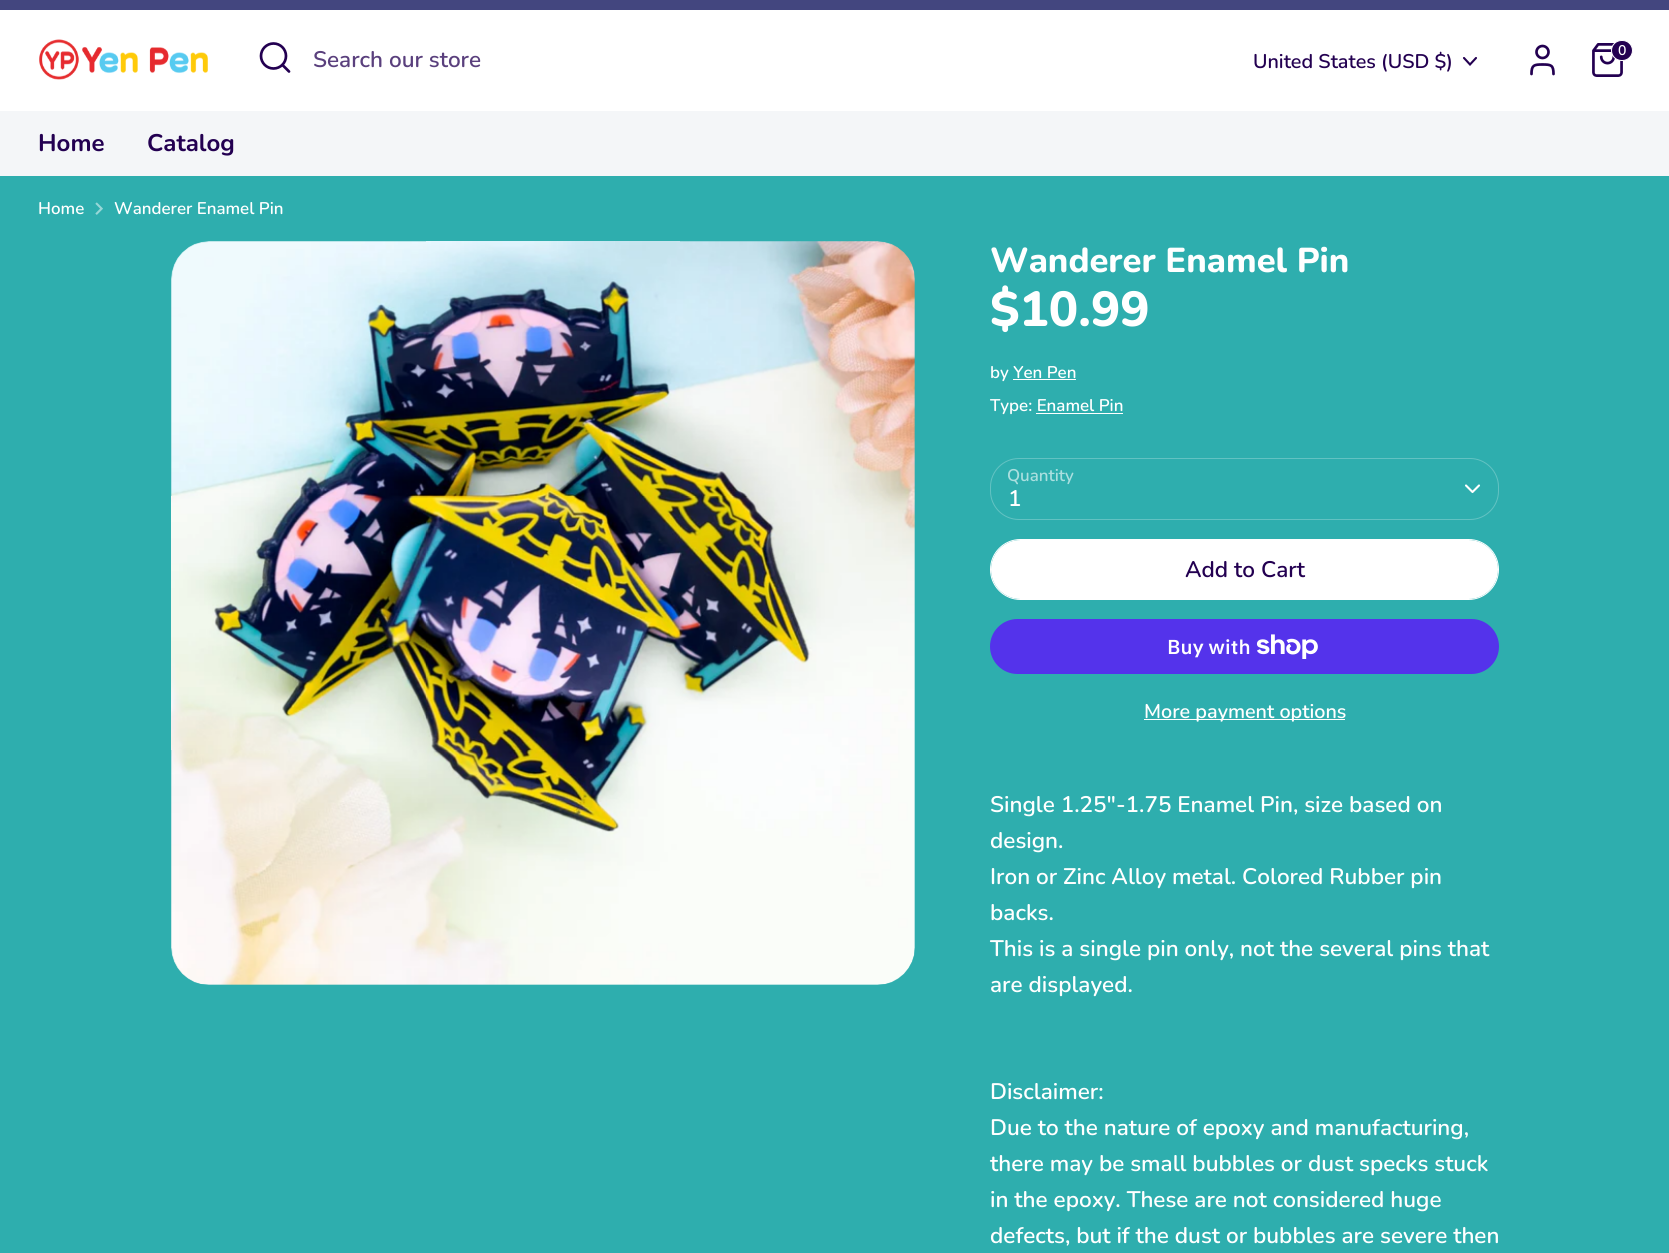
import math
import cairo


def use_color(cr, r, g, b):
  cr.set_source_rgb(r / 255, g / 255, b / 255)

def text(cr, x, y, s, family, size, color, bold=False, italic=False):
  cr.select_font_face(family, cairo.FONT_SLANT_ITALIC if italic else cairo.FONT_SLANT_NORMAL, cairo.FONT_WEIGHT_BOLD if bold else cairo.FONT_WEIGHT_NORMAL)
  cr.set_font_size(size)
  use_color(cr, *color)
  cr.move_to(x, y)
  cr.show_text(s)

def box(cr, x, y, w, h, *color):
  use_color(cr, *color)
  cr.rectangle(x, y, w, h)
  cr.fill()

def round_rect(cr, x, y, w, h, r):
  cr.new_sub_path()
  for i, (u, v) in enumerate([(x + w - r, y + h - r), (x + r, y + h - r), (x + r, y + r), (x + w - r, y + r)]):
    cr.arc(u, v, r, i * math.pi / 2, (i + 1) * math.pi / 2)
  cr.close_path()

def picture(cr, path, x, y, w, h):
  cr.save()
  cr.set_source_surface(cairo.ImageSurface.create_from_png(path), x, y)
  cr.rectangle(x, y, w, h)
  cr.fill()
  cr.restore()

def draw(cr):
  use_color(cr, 46, 174, 174)
  cr.paint()
  box(cr, 0, 0, 1669, 10, 67, 70, 127)
  box(cr, 0, 10, 1669, 101, 255, 255, 255)
  picture(cr, "img_01.png", 39, 39, 169, 41)
  cr.arc(273.5, 56, 12.5, 0, 2 * math.pi)
  use_color(cr, 35, 0, 81)
  cr.set_line_width(2.7)
  cr.stroke()
  cr.new_path()
  cr.move_to(289, 71.5)
  cr.line_to(282.5, 65)
  cr.set_line_cap(cairo.LINE_CAP_ROUND)
  cr.set_line_join(cairo.LINE_JOIN_ROUND)
  cr.stroke()
  cr.new_path()
  cr.move_to(1464, 58)
  cr.line_to(1470, 64.5)
  cr.line_to(1476, 58)
  cr.set_line_width(2.1)
  cr.set_line_join(cairo.LINE_JOIN_MITER)
  cr.stroke()
  cr.new_path()
  cr.move_to(1553.5, 74)
  cr.curve_to(1553.5, 65, 1551, 64.5, 1542.5, 64.5)
  cr.curve_to(1534, 64.5, 1531.5, 65, 1531.5, 74)
  cr.set_line_width(2.7)
  cr.set_line_join(cairo.LINE_JOIN_ROUND)
  cr.stroke()
  cr.arc(1542.5, 52, 6, 0, 2 * math.pi)
  cr.set_line_cap(cairo.LINE_CAP_BUTT)
  cr.set_line_join(cairo.LINE_JOIN_MITER)
  cr.stroke()
  picture(cr, "img_02.png", 1592, 43, 31, 34)
  round_rect(cr, 1611.5, 40.5, 21, 20, 10)
  cr.fill_preserve()
  use_color(cr, 255, 255, 255)
  cr.set_line_width(1)
  cr.stroke()
  box(cr, 0, 111, 1669, 65, 244, 246, 248)
  picture(cr, "img_03.png", 95, 202, 8, 13)
  picture(cr, "img_04.png", 171, 241, 744, 744)
  box(cr, 1013, 379, 63, 1, 255, 255, 255)
  box(cr, 1036, 413, 87, 1, 255, 255, 255)
  round_rect(cr, 990.5, 458.5, 508, 61, 28.5)
  use_color(cr, 98, 194, 194)
  cr.stroke()
  cr.new_path()
  cr.move_to(1466, 485.5)
  cr.line_to(1472.5, 492)
  cr.line_to(1479, 485.5)
  use_color(cr, 255, 255, 255)
  cr.set_line_width(2.1)
  cr.set_line_cap(cairo.LINE_CAP_ROUND)
  cr.set_line_join(cairo.LINE_JOIN_ROUND)
  cr.stroke()
  round_rect(cr, 990.5, 539.5, 508, 60, 30)
  cr.set_line_width(1)
  cr.set_line_cap(cairo.LINE_CAP_BUTT)
  cr.set_line_join(cairo.LINE_JOIN_MITER)
  cr.stroke()
  round_rect(cr, 991, 540, 507, 59, 29.5)
  cr.fill()
  use_color(cr, 84, 51, 235)
  round_rect(cr, 990, 619, 509, 55, 27.5)
  cr.fill()
  picture(cr, "img_05.png", 1256, 634, 62, 25)
  box(cr, 1144, 719, 201, 1, 255, 255, 255)
  text(cr, 313, 67, "Search our store", "Nunito SemiBold", 22.5, (90, 64, 125))
  text(cr, 1253, 68, "United States (USD $)", "Nunito SemiBold", 19.75, (35, 0, 81))
  text(cr, 1618, 55, "0", "Nunito SemiBold", 14, (255, 255, 255))
  text(cr, 38, 151, "Home", "Nunito", 24, (35, 0, 81), bold=True)
  text(cr, 147, 151, "Catalog", "Nunito", 24, (35, 0, 81), bold=True)
  text(cr, 38, 214, "Home", "Nunito SemiBold", 16.9, (255, 255, 255))
  text(cr, 114, 214, "Wanderer Enamel Pin", "Nunito SemiBold", 16.9, (255, 255, 255))
  text(cr, 990, 272, "Wanderer Enamel Pin", "Nunito ExtraBold", 34.5, (255, 255, 255))
  text(cr, 990, 326, "$10.99", "Nunito ExtraBold", 49, (255, 255, 255))
  text(cr, 990, 378, "by Yen Pen", "Nunito SemiBold", 16.9, (255, 255, 255))
  text(cr, 990, 411, "Type: Enamel Pin", "Nunito SemiBold", 16.9, (255, 255, 255))
  text(cr, 1007, 481, "Quantity", "Nunito SemiBold", 16.9, (171, 223, 223))
  text(cr, 1008, 506, "1", "Nunito SemiBold", 22.5, (255, 255, 255))
  text(cr, 1185, 577, "Add to Cart", "Nunito SemiBold", 22.5, (35, 0, 81))
  text(cr, 1167, 654, "Buy with", "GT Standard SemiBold", 20, (255, 255, 255))
  text(cr, 1144, 718, "More payment options", "Nunito SemiBold", 19.75, (255, 255, 255))
  text(cr, 990, 812, "Single 1.25\"-1.75 Enamel Pin, size based on", "Nunito SemiBold", 22.5, (255, 255, 255))
  text(cr, 990, 848, "design.", "Nunito SemiBold", 22.5, (255, 255, 255))
  text(cr, 990, 884, "Iron or Zinc Alloy metal. Colored Rubber pin", "Nunito SemiBold", 22.5, (255, 255, 255))
  text(cr, 990, 920, "backs.", "Nunito SemiBold", 22.5, (255, 255, 255))
  text(cr, 990, 956, "This is a single pin only, not the several pins that", "Nunito SemiBold", 22.5, (255, 255, 255))
  text(cr, 990, 992, "are displayed.", "Nunito SemiBold", 22.5, (255, 255, 255))
  text(cr, 990, 1099, "Disclaimer:", "Nunito SemiBold", 22.5, (255, 255, 255))
  text(cr, 990, 1135, "Due to the nature of epoxy and manufacturing,", "Nunito SemiBold", 22.5, (255, 255, 255))
  text(cr, 990, 1171, "there may be small bubbles or dust specks stuck", "Nunito SemiBold", 22.5, (255, 255, 255))
  text(cr, 990, 1207, "in the epoxy. These are not considered huge", "Nunito SemiBold", 22.5, (255, 255, 255))
  text(cr, 990, 1243, "defects, but if the dust or bubbles are severe then", "Nunito SemiBold", 22.5, (255, 255, 255))


surface = cairo.ImageSurface(cairo.FORMAT_RGB24, 1669, 1253)
cr = cairo.Context(surface)
options = cairo.FontOptions()
options.set_hint_metrics(cairo.HINT_METRICS_OFF)
options.set_hint_style(cairo.HINT_STYLE_NONE)
cr.set_font_options(options)
cr.set_miter_limit(4)
draw(cr)
surface.write_to_png("out.png")
